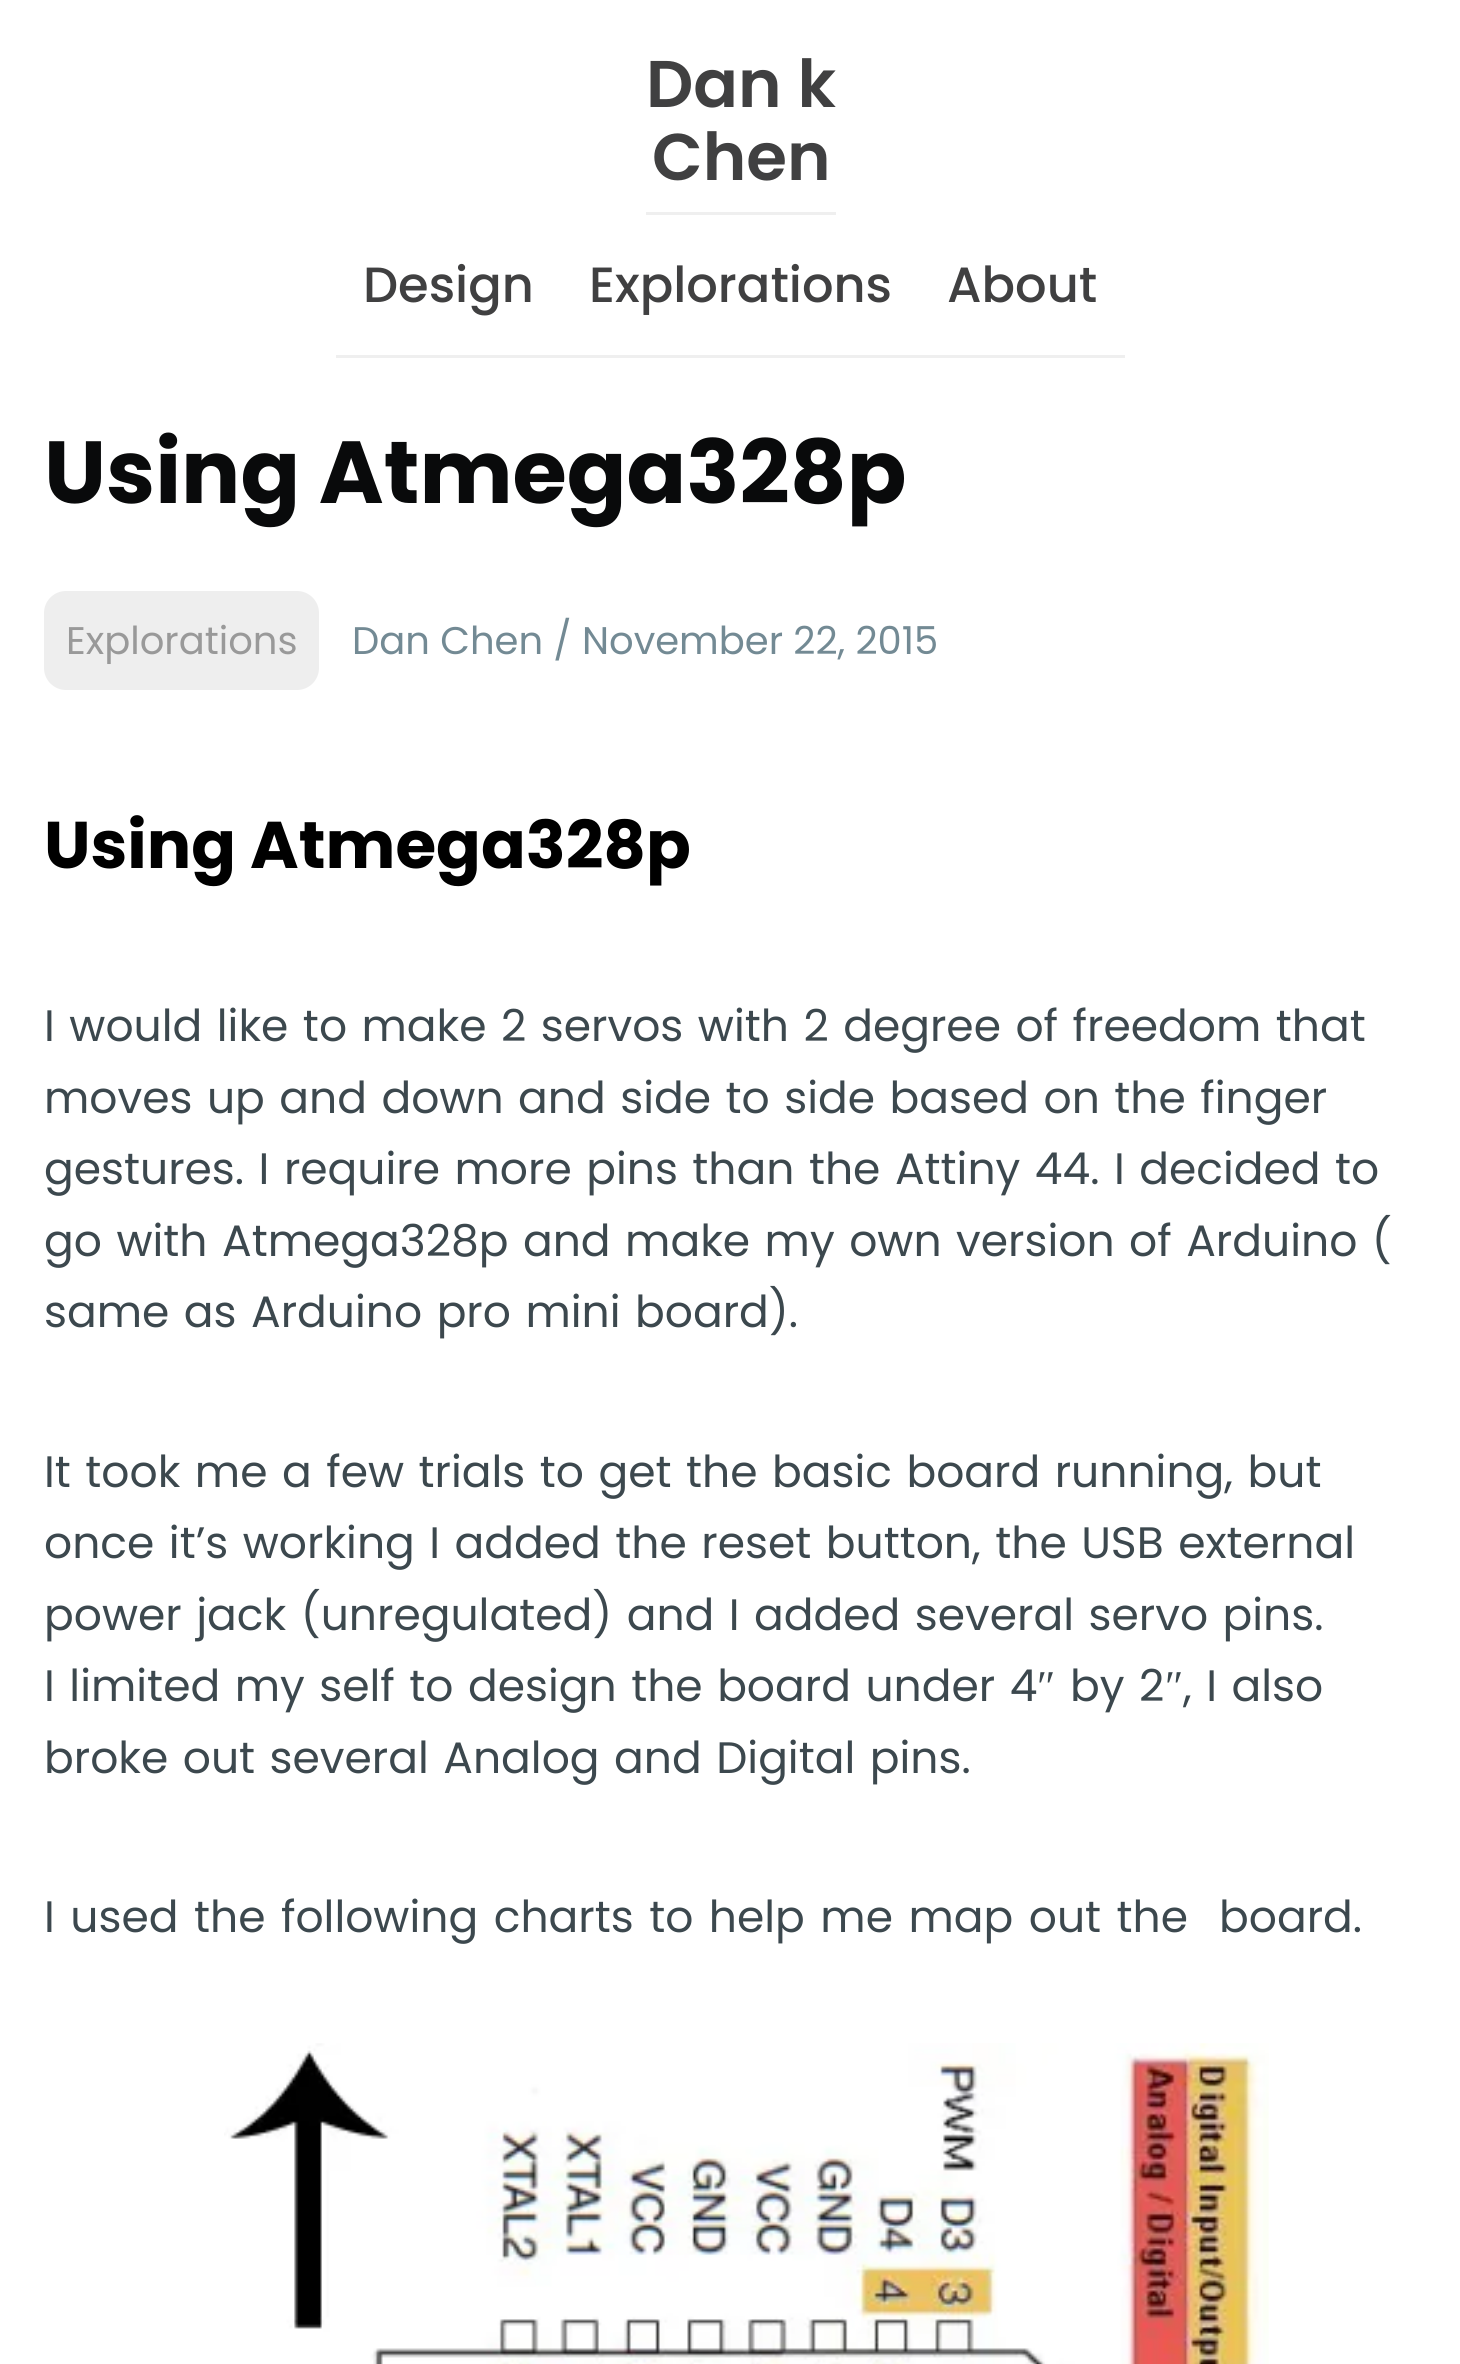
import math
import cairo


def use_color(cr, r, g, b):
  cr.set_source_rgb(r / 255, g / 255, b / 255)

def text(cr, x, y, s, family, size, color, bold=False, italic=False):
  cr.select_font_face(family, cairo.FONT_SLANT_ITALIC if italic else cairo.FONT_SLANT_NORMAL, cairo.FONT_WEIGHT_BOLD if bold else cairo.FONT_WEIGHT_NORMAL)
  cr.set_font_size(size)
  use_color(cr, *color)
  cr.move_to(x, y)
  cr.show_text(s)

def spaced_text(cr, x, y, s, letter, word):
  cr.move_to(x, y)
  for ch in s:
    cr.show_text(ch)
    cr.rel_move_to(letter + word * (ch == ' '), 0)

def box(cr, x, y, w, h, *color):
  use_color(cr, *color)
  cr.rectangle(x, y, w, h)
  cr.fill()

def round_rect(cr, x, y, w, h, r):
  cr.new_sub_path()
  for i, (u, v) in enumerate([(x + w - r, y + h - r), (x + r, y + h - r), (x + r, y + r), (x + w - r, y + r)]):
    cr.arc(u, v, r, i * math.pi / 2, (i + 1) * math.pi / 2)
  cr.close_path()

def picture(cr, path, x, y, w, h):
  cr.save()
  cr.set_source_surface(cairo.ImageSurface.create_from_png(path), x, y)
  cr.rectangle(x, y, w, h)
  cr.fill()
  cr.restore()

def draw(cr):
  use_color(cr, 255, 255, 255)
  cr.paint()
  box(cr, 646, 212, 190, 3, 239, 239, 239)
  box(cr, 336, 355, 789, 3, 239, 239, 239)
  use_color(cr, 238, 238, 238)
  round_rect(cr, 44, 591, 275, 99, 22)
  cr.fill()
  picture(cr, "img_01.png", 224, 2043, 1045, 321)
  text(cr, 646, 107, "Dan k", "Poppins SemiBold", 66, (64, 64, 65))
  text(cr, 652, 180, "Chen", "Poppins SemiBold", 66, (64, 64, 65))
  text(cr, 363, 302, "Design", "Poppins Medium", 49.5, (64, 64, 65))
  text(cr, 589, 302, "Explorations", "Poppins Medium", 49.5, (64, 64, 65))
  text(cr, 947, 302, "About", "Poppins Medium", 49.5, (64, 64, 65))
  text(cr, 44, 503, "Using Atmega328p", "Poppins", 88, (9, 10, 11), bold=True)
  text(cr, 66, 654, "Explorations", "Poppins", 38.5, (153, 153, 153))
  text(cr, 352, 654, "Dan Chen / November 22, 2015", "Poppins", 38.5, (115, 138, 148))
  text(cr, 44, 868, "Using Atmega328p", "Poppins", 66, (0, 0, 0), bold=True)
  cr.select_font_face("Poppins")
  cr.set_font_size(44)
  use_color(cr, 60, 72, 78)
  spaced_text(cr, 44, 1041, "I would like to make 2 servos with 2 degree of freedom that", 0, 2.75)
  spaced_text(cr, 44, 1113, "moves up and down and side to side based on the finger", 0, 2.75)
  spaced_text(cr, 44, 1184, "gestures. I require more pins than the Attiny 44. I decided to", 0, 2.75)
  spaced_text(cr, 44, 1256, "go with Atmega328p and make my own version of Arduino (", 0, 2.75)
  spaced_text(cr, 44, 1327, "same as Arduino pro mini board).", 0, 2.75)
  spaced_text(cr, 44, 1487, "It took me a few trials to get the basic board running, but", 0, 2.75)
  spaced_text(cr, 44, 1558, "once it’s working I added the reset button, the USB external", 0, 2.75)
  spaced_text(cr, 44, 1630, "power jack (unregulated) and I added several servo pins.", 0, 2.75)
  spaced_text(cr, 44, 1701, "I limited my self to design the board under 4", 0, 2.75)
  text(cr, 1037, 1701, "″", "Liberation Serif", 44, (60, 72, 78))
  cr.select_font_face("Poppins")
  spaced_text(cr, 1070, 1701, "by 2", 0, 2.75)
  text(cr, 1165, 1701, "″", "Liberation Serif", 44, (60, 72, 78))
  cr.select_font_face("Poppins")
  spaced_text(cr, 1183, 1701, ", I also", 0, 2.75)
  spaced_text(cr, 44, 1773, "broke out several Analog and Digital pins.", 0, 2.75)
  spaced_text(cr, 44, 1932, "I used the following charts to help me map out the  board.", 0, 3.75)


surface = cairo.ImageSurface(cairo.FORMAT_RGB24, 1460, 2364)
cr = cairo.Context(surface)
options = cairo.FontOptions()
options.set_hint_metrics(cairo.HINT_METRICS_OFF)
options.set_hint_style(cairo.HINT_STYLE_NONE)
cr.set_font_options(options)
cr.set_miter_limit(4)
draw(cr)
surface.write_to_png("out.png")
